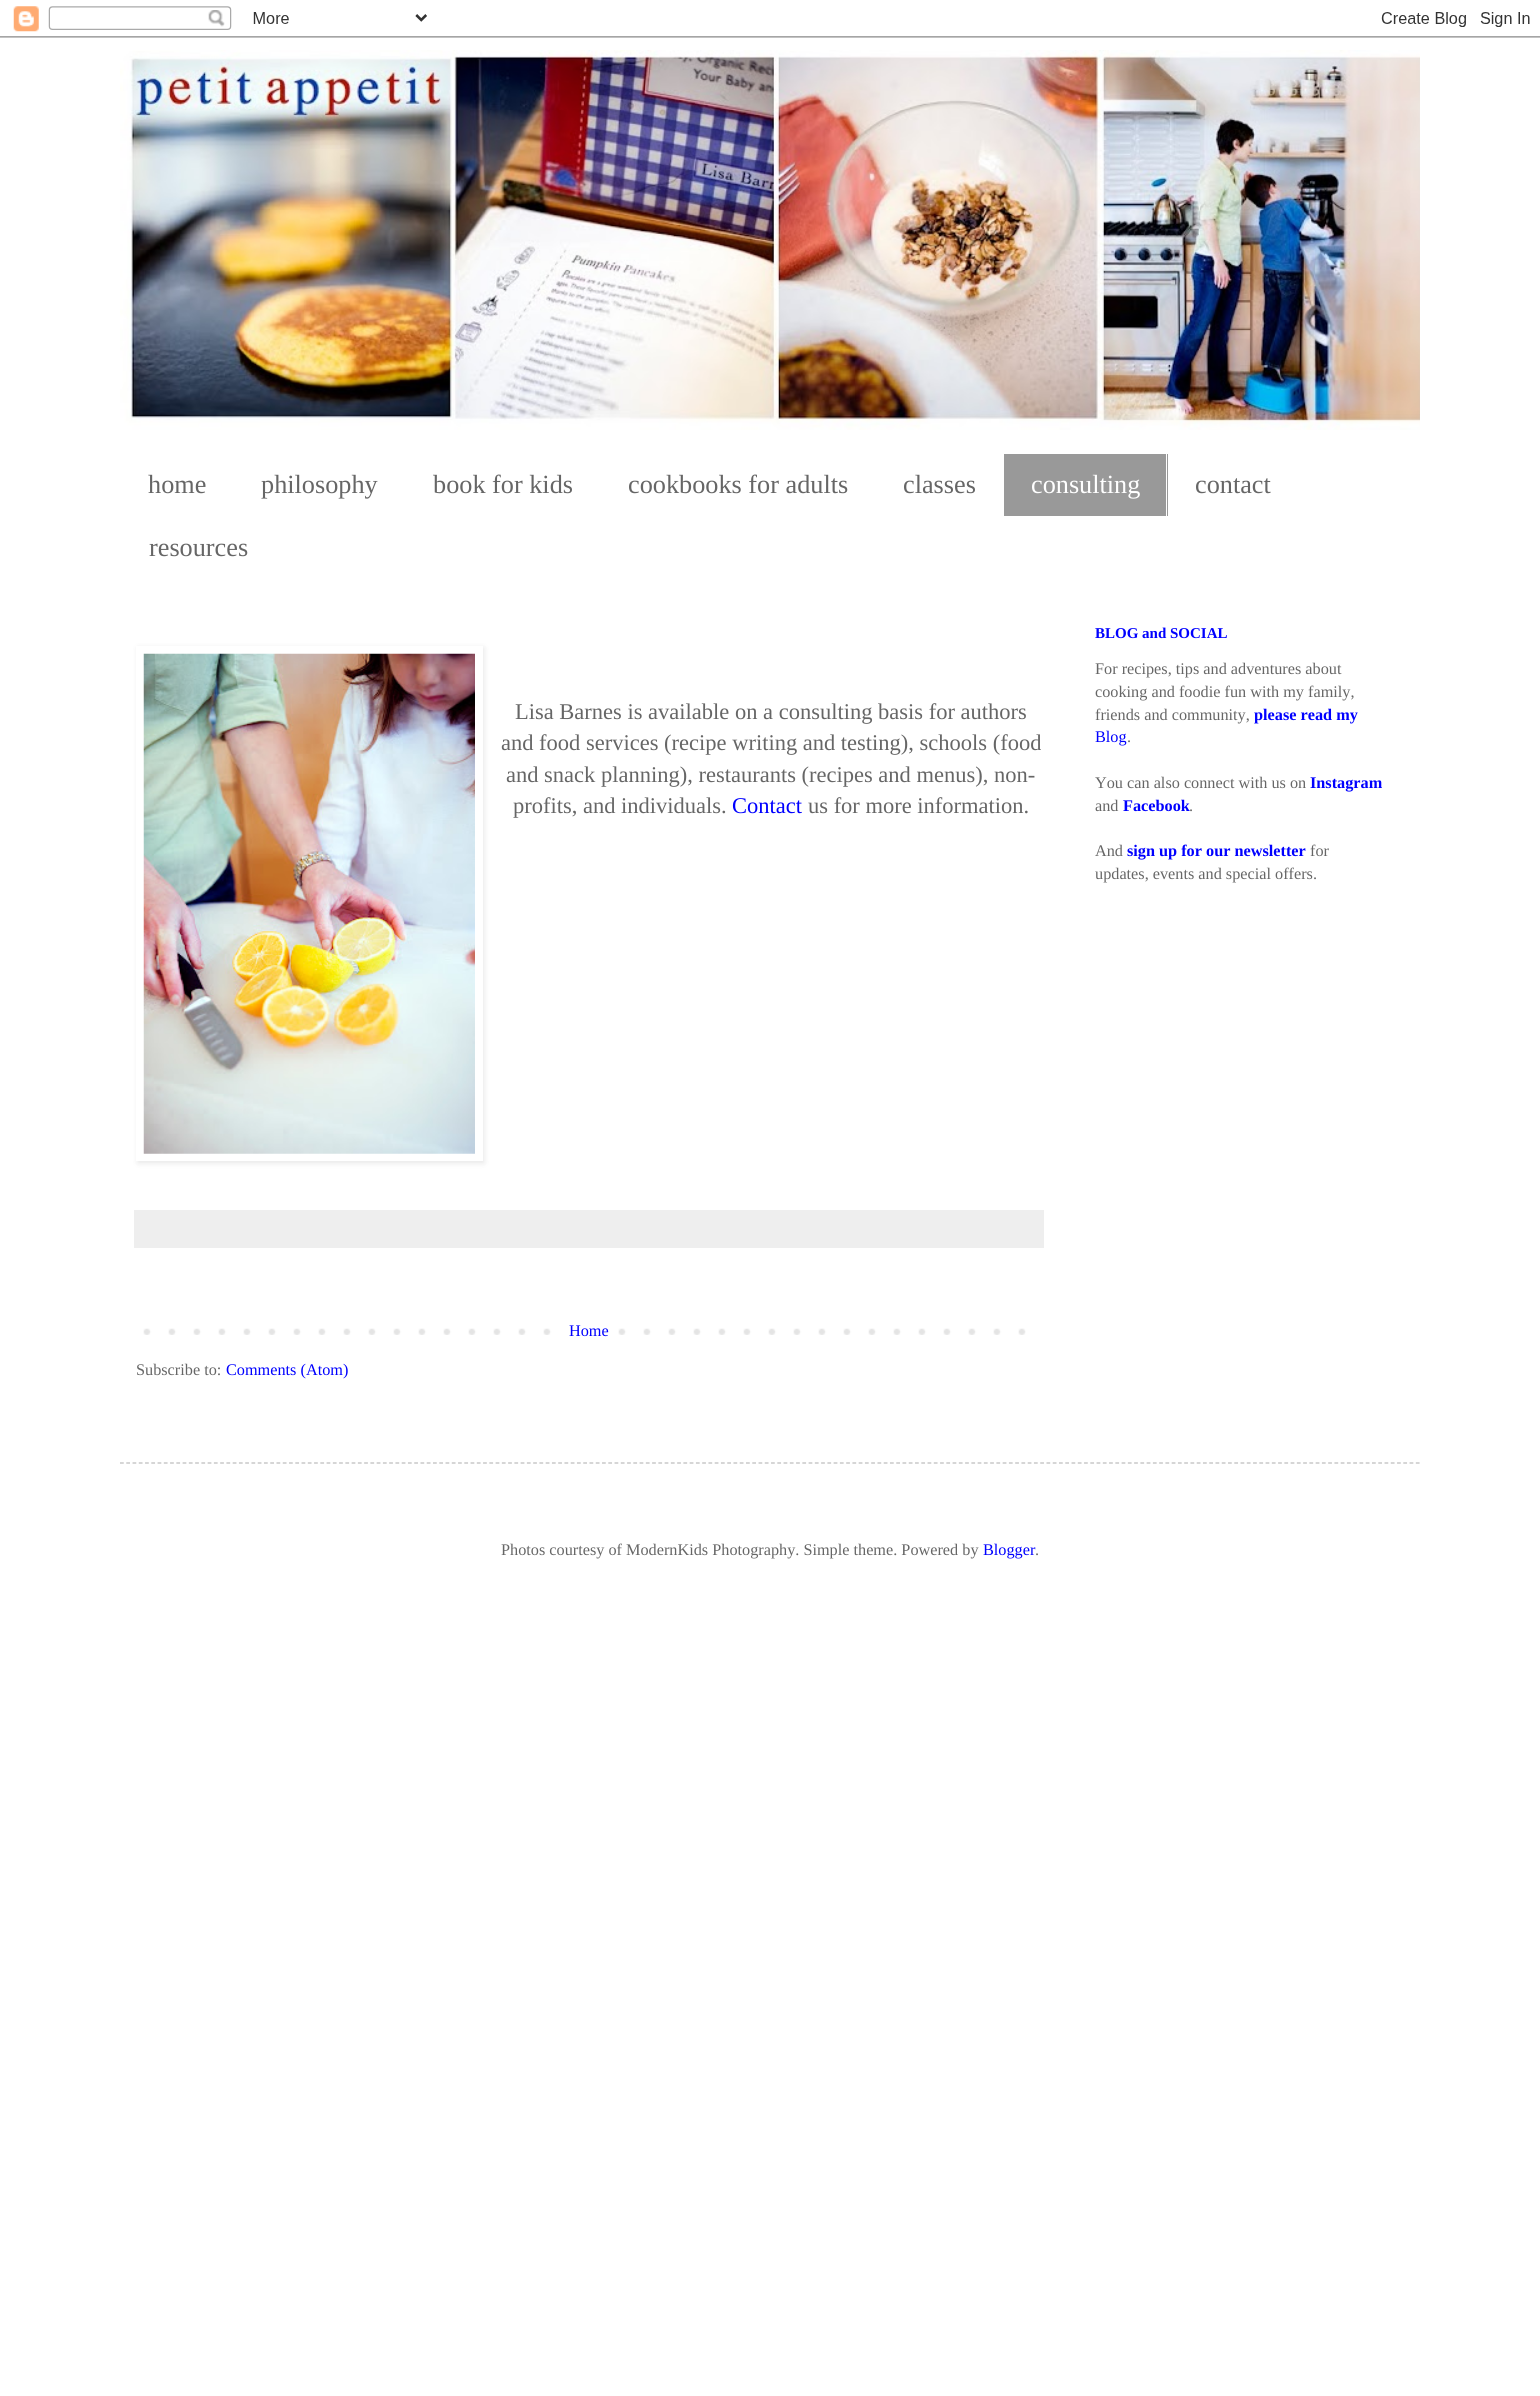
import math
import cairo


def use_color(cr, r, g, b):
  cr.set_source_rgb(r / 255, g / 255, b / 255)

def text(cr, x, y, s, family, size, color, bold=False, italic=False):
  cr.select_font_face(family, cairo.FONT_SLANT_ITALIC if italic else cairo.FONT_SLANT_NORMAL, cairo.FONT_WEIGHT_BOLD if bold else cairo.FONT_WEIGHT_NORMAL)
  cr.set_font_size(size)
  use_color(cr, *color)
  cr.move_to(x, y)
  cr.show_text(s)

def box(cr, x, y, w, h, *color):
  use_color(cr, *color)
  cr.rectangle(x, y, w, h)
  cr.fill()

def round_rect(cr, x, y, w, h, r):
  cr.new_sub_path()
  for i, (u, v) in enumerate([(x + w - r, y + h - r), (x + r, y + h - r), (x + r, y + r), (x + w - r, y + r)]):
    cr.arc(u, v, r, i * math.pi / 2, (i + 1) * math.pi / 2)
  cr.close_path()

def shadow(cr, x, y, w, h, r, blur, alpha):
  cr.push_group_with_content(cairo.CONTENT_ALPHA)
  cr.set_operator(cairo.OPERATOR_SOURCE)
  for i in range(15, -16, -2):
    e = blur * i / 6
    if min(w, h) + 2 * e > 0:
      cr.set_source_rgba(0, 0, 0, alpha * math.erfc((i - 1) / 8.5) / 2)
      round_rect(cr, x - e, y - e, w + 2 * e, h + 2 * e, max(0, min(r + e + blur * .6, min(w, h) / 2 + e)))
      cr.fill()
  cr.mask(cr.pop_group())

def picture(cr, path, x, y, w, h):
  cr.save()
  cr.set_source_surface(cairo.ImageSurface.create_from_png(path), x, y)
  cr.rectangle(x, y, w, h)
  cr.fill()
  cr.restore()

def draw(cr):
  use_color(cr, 255, 255, 255)
  cr.paint()
  picture(cr, "img_01.png", 0, 6, 1540, 32)
  picture(cr, "img_02.png", 120, 50, 1300, 380)
  box(cr, 1004, 454, 164, 62, 153, 153, 153)
  box(cr, 1166, 454, 1, 62, 255, 255, 255)
  use_color(cr, 0, 0, 0)
  shadow(cr, 138, 648, 346, 515, 0, 3, 0.1)
  box(cr, 136, 646, 347, 515, 255, 255, 255)
  picture(cr, "img_03.png", 143, 653, 332, 501)
  box(cr, 134, 1210, 910, 38, 238, 238, 238)
  picture(cr, "img_04.png", 143, 1328, 883, 7)
  box(cr, 568, 1328, 33, 7, 255, 255, 255)
  cr.new_path()
  cr.move_to(120, 1463)
  cr.line_to(1420, 1463)
  use_color(cr, 187, 187, 187)
  cr.set_line_width(1.2)
  cr.set_dash([3.75, 2.51])
  cr.stroke()
  text(cr, 148, 493, "home", "Liberation Serif", 26.25, (102, 102, 102))
  text(cr, 261, 493, "philosophy", "Liberation Serif", 26.25, (102, 102, 102))
  text(cr, 433, 493, "book for kids", "Liberation Serif", 26.25, (102, 102, 102))
  text(cr, 628, 493, "cookbooks for adults", "Liberation Serif", 26.25, (102, 102, 102))
  text(cr, 903, 493, "classes", "Liberation Serif", 26.25, (102, 102, 102))
  text(cr, 1031, 493, "consulting", "Liberation Serif", 26.25, (255, 255, 255))
  text(cr, 1195, 493, "contact", "Liberation Serif", 26.25, (102, 102, 102))
  text(cr, 149, 556, "resources", "Liberation Serif", 26.25, (102, 102, 102))
  text(cr, 515, 719, "Lisa Barnes is available on a consulting basis for authors", "Liberation Serif", 22.5, (102, 102, 102))
  text(cr, 501, 750, "and food services (recipe writing and testing), schools (food", "Liberation Serif", 22.5, (102, 102, 102))
  text(cr, 506, 782, "and snack planning), restaurants (recipes and menus), non-", "Liberation Serif", 22.5, (102, 102, 102))
  text(cr, 513, 813, "profits, and individuals.", "Liberation Serif", 22.5, (102, 102, 102))
  text(cr, 732, 813, "Contact", "Liberation Serif", 22.5, (0, 0, 255))
  text(cr, 808, 813, "us for more information.", "Liberation Serif", 22.5, (102, 102, 102))
  text(cr, 569, 1336, "Home", "Liberation Serif", 16.25, (0, 0, 255))
  text(cr, 136, 1375, "Subscribe to:", "Liberation Serif", 16.25, (102, 102, 102))
  text(cr, 226, 1375, "Comments (Atom)", "Liberation Serif", 16.25, (0, 0, 255))
  text(cr, 1095, 638, "BLOG and SOCIAL", "Liberation Serif", 15, (0, 0, 255), bold=True)
  text(cr, 1095, 674, "For recipes, tips and adventures about", "Liberation Serif", 16.25, (102, 102, 102))
  text(cr, 1095, 697, "cooking and foodie fun with my family,", "Liberation Serif", 16.25, (102, 102, 102))
  text(cr, 1095, 720, "friends and community,", "Liberation Serif", 16.25, (102, 102, 102))
  text(cr, 1254, 720, "please read my", "Liberation Serif", 16.25, (0, 0, 255), bold=True)
  text(cr, 1095, 742, "Blog", "Liberation Serif", 16.25, (0, 0, 255))
  text(cr, 1127, 742, ".", "Liberation Serif", 16.25, (102, 102, 102))
  text(cr, 1095, 788, "You can also connect with us on", "Liberation Serif", 16.25, (102, 102, 102))
  text(cr, 1310, 788, "Instagram", "Liberation Serif", 16.25, (0, 0, 255), bold=True)
  text(cr, 1095, 811, "and", "Liberation Serif", 16.25, (102, 102, 102))
  text(cr, 1123, 811, "Facebook", "Liberation Serif", 16.25, (0, 0, 255), bold=True)
  text(cr, 1189, 811, ".", "Liberation Serif", 16.25, (102, 102, 102))
  text(cr, 1095, 856, "And", "Liberation Serif", 16.25, (102, 102, 102))
  text(cr, 1127, 856, "sign up for our newsletter", "Liberation Serif", 16.25, (0, 0, 255), bold=True)
  text(cr, 1310, 856, "for", "Liberation Serif", 16.25, (102, 102, 102))
  text(cr, 1095, 879, "updates, events and special offers.", "Liberation Serif", 16.25, (102, 102, 102))
  text(cr, 501, 1555, "Photos courtesy of ModernKids Photography. Simple theme. Powered by", "Liberation Serif", 16.25, (102, 102, 102))
  text(cr, 983, 1555, "Blogger", "Liberation Serif", 16.25, (0, 0, 255))
  text(cr, 1035, 1555, ".", "Liberation Serif", 16.25, (102, 102, 102))


surface = cairo.ImageSurface(cairo.FORMAT_RGB24, 1540, 2396)
cr = cairo.Context(surface)
options = cairo.FontOptions()
options.set_hint_metrics(cairo.HINT_METRICS_OFF)
options.set_hint_style(cairo.HINT_STYLE_NONE)
cr.set_font_options(options)
cr.set_miter_limit(4)
draw(cr)
surface.write_to_png("out.png")
